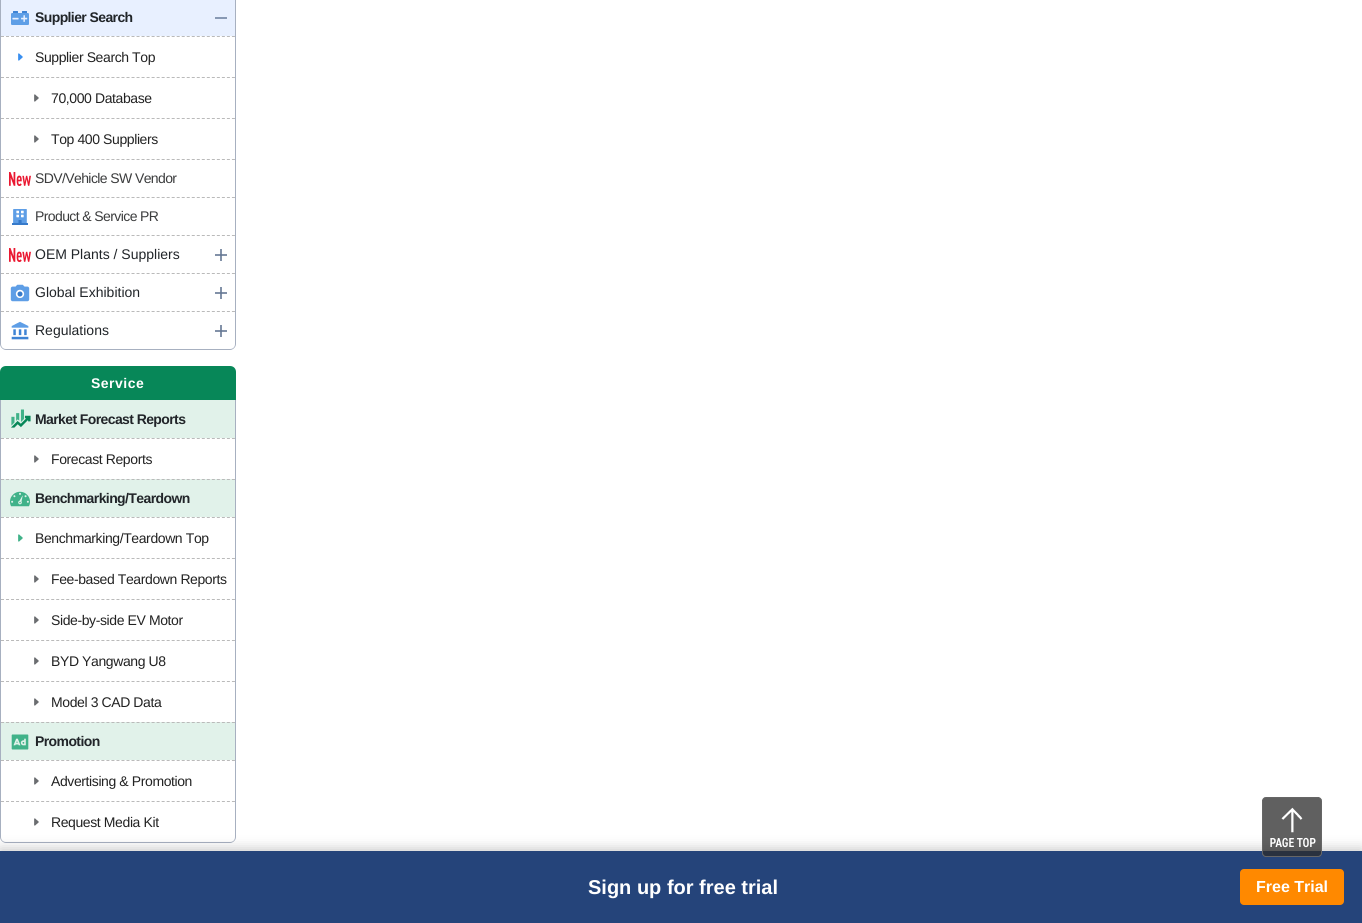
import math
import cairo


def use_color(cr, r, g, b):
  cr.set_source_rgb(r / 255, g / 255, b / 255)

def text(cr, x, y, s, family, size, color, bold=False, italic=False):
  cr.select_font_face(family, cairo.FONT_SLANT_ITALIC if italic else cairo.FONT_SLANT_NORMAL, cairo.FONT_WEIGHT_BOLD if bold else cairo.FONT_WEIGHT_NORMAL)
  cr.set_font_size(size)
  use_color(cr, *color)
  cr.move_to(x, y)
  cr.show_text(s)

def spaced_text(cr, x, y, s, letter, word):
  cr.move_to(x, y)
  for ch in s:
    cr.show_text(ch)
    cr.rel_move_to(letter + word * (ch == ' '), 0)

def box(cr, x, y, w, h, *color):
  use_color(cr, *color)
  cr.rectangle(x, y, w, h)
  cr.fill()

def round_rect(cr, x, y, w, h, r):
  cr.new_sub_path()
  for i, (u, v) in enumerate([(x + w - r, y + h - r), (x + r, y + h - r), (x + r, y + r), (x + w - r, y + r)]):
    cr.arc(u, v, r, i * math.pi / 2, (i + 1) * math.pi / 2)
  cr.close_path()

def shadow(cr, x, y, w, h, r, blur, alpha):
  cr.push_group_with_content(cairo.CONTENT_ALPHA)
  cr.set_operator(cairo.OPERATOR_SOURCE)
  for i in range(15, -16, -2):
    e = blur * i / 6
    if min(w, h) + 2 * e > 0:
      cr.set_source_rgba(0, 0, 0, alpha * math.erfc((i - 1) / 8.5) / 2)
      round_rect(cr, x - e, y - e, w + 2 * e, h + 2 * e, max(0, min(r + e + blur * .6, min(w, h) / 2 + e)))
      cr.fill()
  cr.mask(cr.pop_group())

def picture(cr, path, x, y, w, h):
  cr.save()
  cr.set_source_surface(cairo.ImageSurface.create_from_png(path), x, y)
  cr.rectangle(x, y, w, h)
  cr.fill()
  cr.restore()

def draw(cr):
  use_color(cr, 255, 255, 255)
  cr.paint()
  use_color(cr, 167, 176, 192)
  cr.set_fill_rule(cairo.FILL_RULE_EVEN_ODD)
  cr.new_path()
  cr.move_to(0, -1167)
  cr.line_to(236, -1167)
  cr.line_to(236, 344)
  cr.curve_to(236, 347, 233, 350, 230, 350)
  cr.line_to(6, 350)
  cr.curve_to(3, 350, 0, 347, 0, 344)
  cr.close_path()
  cr.move_to(1, -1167)
  cr.line_to(235, -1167)
  cr.line_to(235, 344)
  cr.curve_to(235, 347, 233, 349, 230, 349)
  cr.line_to(6, 349)
  cr.curve_to(3, 349, 1, 347, 1, 344)
  cr.close_path()
  cr.fill()
  box(cr, 1, 0, 234, 36, 232, 240, 255)
  picture(cr, "img_01.png", 11, 11, 18, 14)
  box(cr, 215, 17, 12, 2, 136, 153, 180)
  cr.new_path()
  cr.move_to(1, 36.5)
  cr.line_to(235, 36.5)
  use_color(cr, 186, 186, 186)
  cr.set_line_width(1)
  cr.set_dash([3, 2.02])
  cr.stroke()
  picture(cr, "img_02.png", 18, 53, 5, 8)
  cr.new_path()
  cr.move_to(1, 77.5)
  cr.line_to(235, 77.5)
  cr.stroke()
  picture(cr, "img_03.png", 34, 94, 5, 8)
  cr.new_path()
  cr.move_to(1, 118.5)
  cr.line_to(235, 118.5)
  cr.stroke()
  picture(cr, "img_03.png", 34, 135, 5, 8)
  cr.new_path()
  cr.move_to(1, 159.5)
  cr.line_to(235, 159.5)
  cr.stroke()
  picture(cr, "img_04.png", 9, 172, 22, 14)
  cr.new_path()
  cr.move_to(1, 197.5)
  cr.line_to(235, 197.5)
  cr.stroke()
  picture(cr, "img_05.png", 12, 209, 16, 16)
  cr.new_path()
  cr.move_to(1, 235.5)
  cr.line_to(235, 235.5)
  cr.stroke()
  picture(cr, "img_04.png", 9, 248, 22, 14)
  picture(cr, "img_06.png", 215, 249, 12, 12)
  cr.new_path()
  cr.move_to(1, 273.5)
  cr.line_to(235, 273.5)
  cr.stroke()
  picture(cr, "img_07.png", 10, 284, 20, 18)
  picture(cr, "img_06.png", 215, 287, 12, 12)
  cr.new_path()
  cr.move_to(1, 311.5)
  cr.line_to(235, 311.5)
  cr.stroke()
  picture(cr, "img_08.png", 11, 321, 18, 19)
  picture(cr, "img_06.png", 215, 325, 12, 12)
  use_color(cr, 7, 135, 88)
  cr.new_path()
  cr.move_to(6, 366)
  cr.line_to(230, 366)
  cr.curve_to(233.5, 366, 236, 368.5, 236, 372)
  cr.line_to(236, 400)
  cr.line_to(0, 400)
  cr.line_to(0, 372)
  cr.curve_to(0, 368.5, 2.5, 366, 6, 366)
  cr.close_path()
  cr.fill()
  use_color(cr, 167, 176, 192)
  cr.new_path()
  cr.move_to(0, 400)
  cr.line_to(236, 400)
  cr.line_to(236, 837)
  cr.curve_to(236, 840, 233, 843, 230, 843)
  cr.line_to(6, 843)
  cr.curve_to(3, 843, 0, 840, 0, 837)
  cr.close_path()
  cr.move_to(1, 400)
  cr.line_to(235, 400)
  cr.line_to(235, 837)
  cr.curve_to(235, 840, 233, 842, 230, 842)
  cr.line_to(6, 842)
  cr.curve_to(3, 842, 1, 840, 1, 837)
  cr.close_path()
  cr.fill()
  box(cr, 1, 400, 234, 38, 225, 242, 234)
  picture(cr, "img_09.png", 11, 409, 20, 19)
  cr.new_path()
  cr.move_to(1, 438.5)
  cr.line_to(235, 438.5)
  use_color(cr, 186, 186, 186)
  cr.stroke()
  picture(cr, "img_03.png", 34, 455, 5, 8)
  box(cr, 1, 479, 234, 38, 225, 242, 234)
  cr.new_path()
  cr.move_to(1, 479.5)
  cr.line_to(235, 479.5)
  use_color(cr, 186, 186, 186)
  cr.stroke()
  picture(cr, "img_10.png", 10, 491, 20, 16)
  cr.new_path()
  cr.move_to(1, 517.5)
  cr.line_to(235, 517.5)
  cr.stroke()
  picture(cr, "img_11.png", 18, 534, 5, 8)
  cr.new_path()
  cr.move_to(1, 558.5)
  cr.line_to(235, 558.5)
  cr.stroke()
  picture(cr, "img_03.png", 34, 575, 5, 8)
  cr.new_path()
  cr.move_to(1, 599.5)
  cr.line_to(235, 599.5)
  cr.stroke()
  picture(cr, "img_03.png", 34, 616, 5, 8)
  cr.new_path()
  cr.move_to(1, 640.5)
  cr.line_to(235, 640.5)
  cr.stroke()
  picture(cr, "img_03.png", 34, 657, 5, 8)
  cr.new_path()
  cr.move_to(1, 681.5)
  cr.line_to(235, 681.5)
  cr.stroke()
  picture(cr, "img_03.png", 34, 698, 5, 8)
  box(cr, 1, 722, 234, 38, 225, 242, 234)
  cr.new_path()
  cr.move_to(1, 722.5)
  cr.line_to(235, 722.5)
  use_color(cr, 186, 186, 186)
  cr.stroke()
  picture(cr, "img_12.png", 11, 734, 18, 16)
  cr.new_path()
  cr.move_to(1, 760.5)
  cr.line_to(235, 760.5)
  cr.stroke()
  picture(cr, "img_03.png", 34, 777, 5, 8)
  cr.new_path()
  cr.move_to(1, 801.5)
  cr.line_to(235, 801.5)
  cr.stroke()
  picture(cr, "img_03.png", 34, 818, 5, 8)
  use_color(cr, 0, 0, 0)
  shadow(cr, 0, 848, 1362, 72, 0, 6, 0.2)
  box(cr, 0, 851, 1362, 72, 37, 68, 122)
  picture(cr, "img_13.png", 1262, 797, 60, 60)
  use_color(cr, 255, 137, 0)
  round_rect(cr, 1239, 868, 106, 38, 5)
  cr.fill_preserve()
  use_color(cr, 37, 68, 122)
  cr.set_line_width(2)
  cr.set_dash([])
  cr.stroke()
  cr.select_font_face("Liberation Sans", cairo.FONT_SLANT_NORMAL, cairo.FONT_WEIGHT_BOLD)
  cr.set_font_size(14)
  use_color(cr, 33, 37, 41)
  spaced_text(cr, 35, 22, "Supplier Search", -0.6, 0)
  cr.select_font_face("Liberation Sans")
  use_color(cr, 34, 34, 34)
  spaced_text(cr, 35, 62, "Supplier Search Top", -0.4, 0)
  spaced_text(cr, 51, 103, "70,000 Database", -0.4, 0)
  spaced_text(cr, 51, 144, "Top 400 Suppliers", -0.4, 0)
  use_color(cr, 59, 60, 61)
  spaced_text(cr, 35, 183, "SDV/Vehicle SW Vendor", -0.6, 0)
  spaced_text(cr, 35, 221, "Product & Service PR", -0.6, 0)
  text(cr, 35, 259, "OEM Plants / Suppliers", "Liberation Sans", 14, (33, 37, 41))
  text(cr, 35, 297, "Global Exhibition", "Liberation Sans", 14, (33, 37, 41))
  text(cr, 35, 335, "Regulations", "Liberation Sans", 14, (33, 37, 41))
  cr.select_font_face("Liberation Sans", cairo.FONT_SLANT_NORMAL, cairo.FONT_WEIGHT_BOLD)
  use_color(cr, 255, 255, 255)
  spaced_text(cr, 91, 388, "Service", 0.5, 0)
  use_color(cr, 33, 37, 41)
  spaced_text(cr, 35, 424, "Market Forecast Reports", -0.6, 0)
  cr.select_font_face("Liberation Sans")
  use_color(cr, 34, 34, 34)
  spaced_text(cr, 51, 464, "Forecast Reports", -0.4, 0)
  cr.select_font_face("Liberation Sans", cairo.FONT_SLANT_NORMAL, cairo.FONT_WEIGHT_BOLD)
  use_color(cr, 33, 37, 41)
  spaced_text(cr, 35, 503, "Benchmarking/Teardown", -0.6, 0)
  cr.select_font_face("Liberation Sans")
  use_color(cr, 34, 34, 34)
  spaced_text(cr, 35, 543, "Benchmarking/Teardown Top", -0.4, 0)
  spaced_text(cr, 51, 584, "Fee-based Teardown Reports", -0.4, 0)
  spaced_text(cr, 51, 625, "Side-by-side EV Motor", -0.4, 0)
  spaced_text(cr, 51, 666, "BYD Yangwang U8", -0.4, 0)
  spaced_text(cr, 51, 707, "Model 3 CAD Data", -0.4, 0)
  cr.select_font_face("Liberation Sans", cairo.FONT_SLANT_NORMAL, cairo.FONT_WEIGHT_BOLD)
  use_color(cr, 33, 37, 41)
  spaced_text(cr, 35, 746, "Promotion", -0.6, 0)
  cr.select_font_face("Liberation Sans")
  use_color(cr, 34, 34, 34)
  spaced_text(cr, 51, 786, "Advertising & Promotion", -0.4, 0)
  spaced_text(cr, 51, 827, "Request Media Kit", -0.4, 0)
  text(cr, 588, 894, "Sign up for free trial", "Liberation Sans", 20, (255, 255, 255), bold=True)
  text(cr, 1256, 892, "Free Trial", "Liberation Sans", 16, (255, 255, 255), bold=True)


surface = cairo.ImageSurface(cairo.FORMAT_RGB24, 1362, 923)
cr = cairo.Context(surface)
options = cairo.FontOptions()
options.set_hint_metrics(cairo.HINT_METRICS_OFF)
options.set_hint_style(cairo.HINT_STYLE_NONE)
cr.set_font_options(options)
cr.set_miter_limit(4)
draw(cr)
surface.write_to_png("out.png")
